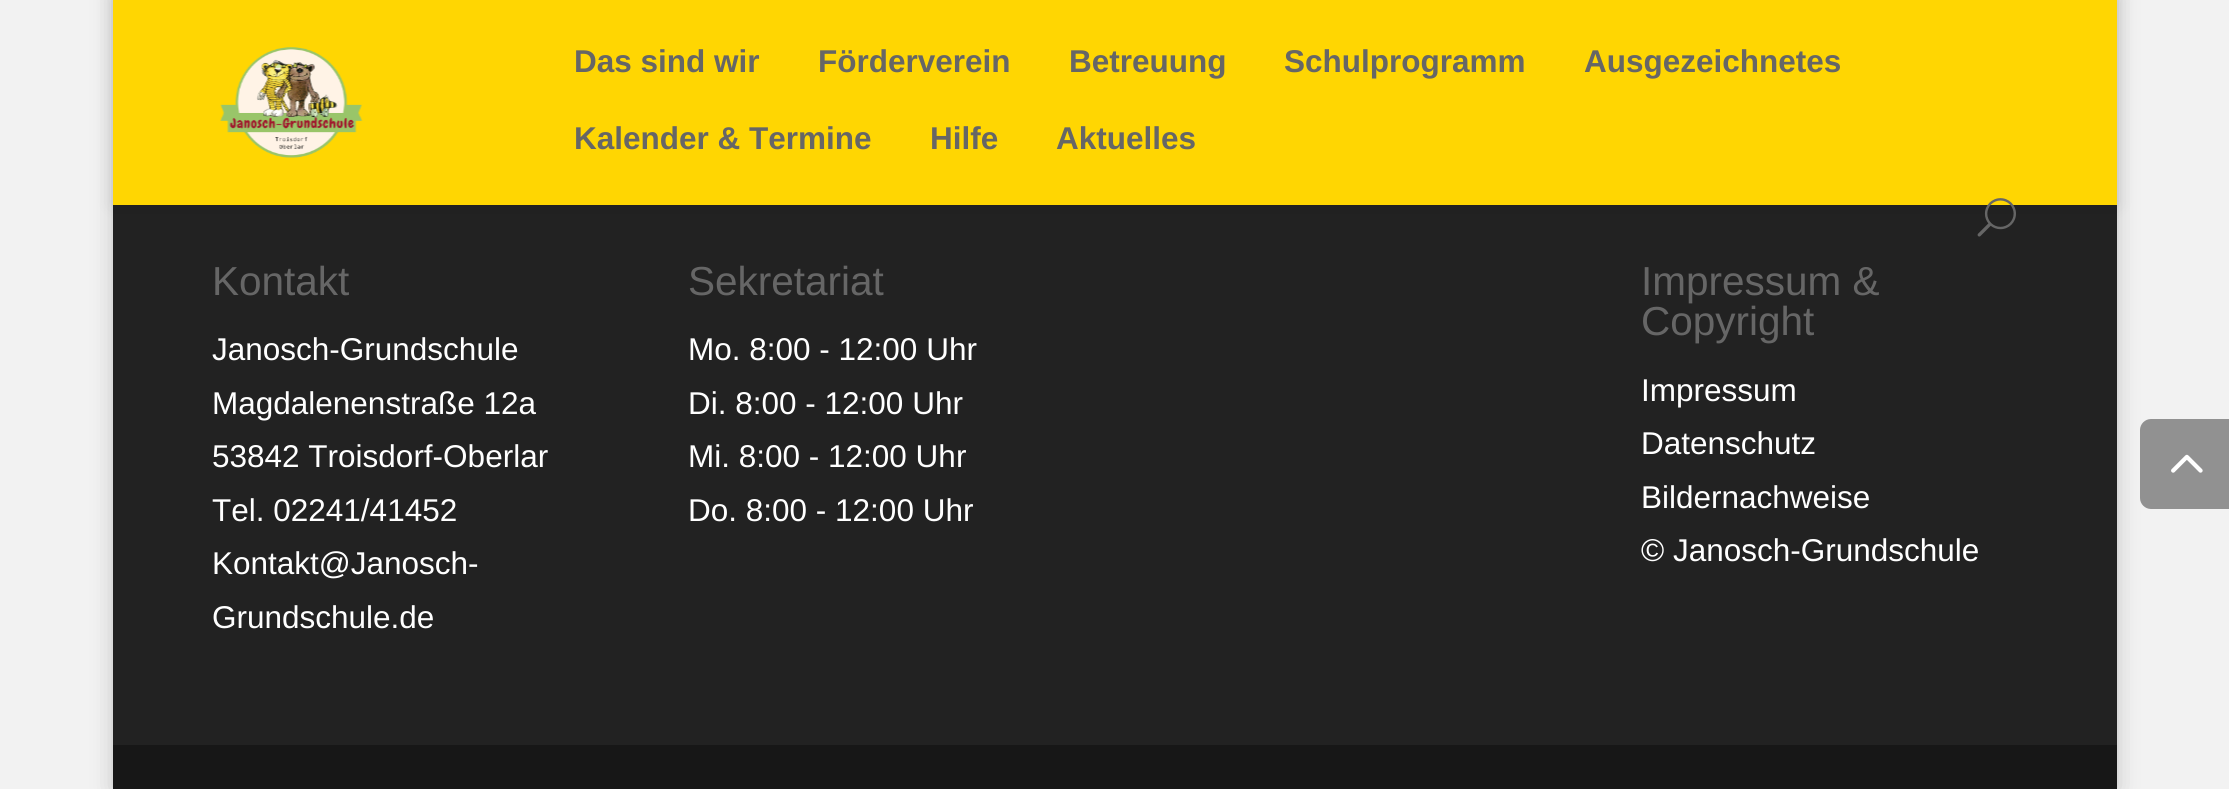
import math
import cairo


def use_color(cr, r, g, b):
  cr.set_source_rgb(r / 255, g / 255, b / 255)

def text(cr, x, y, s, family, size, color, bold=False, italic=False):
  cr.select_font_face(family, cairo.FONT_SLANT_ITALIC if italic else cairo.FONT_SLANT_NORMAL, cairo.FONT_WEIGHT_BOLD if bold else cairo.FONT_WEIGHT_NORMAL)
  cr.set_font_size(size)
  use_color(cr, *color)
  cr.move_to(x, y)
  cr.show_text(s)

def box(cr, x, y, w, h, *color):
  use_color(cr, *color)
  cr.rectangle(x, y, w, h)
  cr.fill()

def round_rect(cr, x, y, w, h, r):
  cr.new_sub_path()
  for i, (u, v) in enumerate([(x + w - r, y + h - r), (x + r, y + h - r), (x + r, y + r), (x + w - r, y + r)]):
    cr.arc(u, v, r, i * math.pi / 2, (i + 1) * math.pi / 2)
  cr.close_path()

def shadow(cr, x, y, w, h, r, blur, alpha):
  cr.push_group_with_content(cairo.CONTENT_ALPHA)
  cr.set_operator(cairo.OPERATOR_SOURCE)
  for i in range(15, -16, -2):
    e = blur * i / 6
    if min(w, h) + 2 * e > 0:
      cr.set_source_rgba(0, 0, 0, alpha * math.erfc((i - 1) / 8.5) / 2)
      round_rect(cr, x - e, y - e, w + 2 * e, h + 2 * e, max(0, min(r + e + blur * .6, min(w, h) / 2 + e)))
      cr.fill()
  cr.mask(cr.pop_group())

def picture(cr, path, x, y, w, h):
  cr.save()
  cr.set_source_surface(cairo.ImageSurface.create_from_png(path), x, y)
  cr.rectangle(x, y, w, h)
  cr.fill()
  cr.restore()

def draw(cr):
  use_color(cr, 242, 242, 242)
  cr.paint()
  use_color(cr, 0, 0, 0)
  shadow(cr, 113, -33, 2004, 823, 0, 11, 0.2)
  box(cr, 113, 205, 2004, 540, 34, 34, 34)
  use_color(cr, 0, 0, 0)
  shadow(cr, 113, 0, 2004, 205, 0, 8, 0.1)
  box(cr, 113, 0, 2004, 205, 255, 214, 2)
  picture(cr, "img_01.png", 220, 47, 143, 111)
  picture(cr, "img_02.png", 1977, 198, 39, 39)
  box(cr, 113, 745, 2004, 44, 23, 23, 23)
  use_color(cr, 145, 145, 145)
  cr.new_path()
  cr.move_to(2151, 419)
  cr.line_to(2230, 419)
  cr.line_to(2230, 509)
  cr.line_to(2151, 509)
  cr.curve_to(2145, 509, 2140, 504, 2140, 498)
  cr.line_to(2140, 430)
  cr.curve_to(2140, 424, 2145, 419, 2151, 419)
  cr.close_path()
  cr.fill()
  picture(cr, "img_03.png", 2171, 454, 32, 19)
  text(cr, 574, 72, "Das sind wir", "Liberation Sans", 31.5, (102, 102, 102), bold=True)
  text(cr, 818, 72, "Förderverein", "Liberation Sans", 31.5, (102, 102, 102), bold=True)
  text(cr, 1069, 72, "Betreuung", "Liberation Sans", 31.5, (102, 102, 102), bold=True)
  text(cr, 1284, 72, "Schulprogramm", "Liberation Sans", 31.5, (102, 102, 102), bold=True)
  text(cr, 1584, 72, "Ausgezeichnetes", "Liberation Sans", 31.5, (102, 102, 102), bold=True)
  text(cr, 574, 149, "Kalender & Termine", "Liberation Sans", 31.5, (102, 102, 102), bold=True)
  text(cr, 930, 149, "Hilfe", "Liberation Sans", 31.5, (102, 102, 102), bold=True)
  text(cr, 1056, 149, "Aktuelles", "Liberation Sans", 31.5, (102, 102, 102), bold=True)
  text(cr, 212, 295, "Kontakt", "Liberation Sans", 40.5, (102, 102, 102))
  text(cr, 212, 360, "Janosch-Grundschule", "Liberation Sans", 31.5, (255, 255, 255))
  text(cr, 212, 414, "Magdalenenstraße 12a", "Liberation Sans", 31.5, (255, 255, 255))
  text(cr, 212, 467, "53842 Troisdorf-Oberlar", "Liberation Sans", 31.5, (255, 255, 255))
  text(cr, 212, 521, "Tel. 02241/41452", "Liberation Sans", 31.5, (255, 255, 255))
  text(cr, 212, 574, "Kontakt@Janosch-", "Liberation Sans", 31.5, (255, 255, 255))
  text(cr, 212, 628, "Grundschule.de", "Liberation Sans", 31.5, (255, 255, 255))
  text(cr, 688, 295, "Sekretariat", "Liberation Sans", 40.5, (102, 102, 102))
  text(cr, 688, 360, "Mo. 8:00 - 12:00 Uhr", "Liberation Sans", 31.5, (255, 255, 255))
  text(cr, 688, 414, "Di. 8:00 - 12:00 Uhr", "Liberation Sans", 31.5, (255, 255, 255))
  text(cr, 688, 467, "Mi. 8:00 - 12:00 Uhr", "Liberation Sans", 31.5, (255, 255, 255))
  text(cr, 688, 521, "Do. 8:00 - 12:00 Uhr", "Liberation Sans", 31.5, (255, 255, 255))
  text(cr, 1641, 295, "Impressum &", "Liberation Sans", 40.5, (102, 102, 102))
  text(cr, 1641, 335, "Copyright", "Liberation Sans", 40.5, (102, 102, 102))
  text(cr, 1641, 401, "Impressum", "Liberation Sans", 31.5, (255, 255, 255))
  text(cr, 1641, 454, "Datenschutz", "Liberation Sans", 31.5, (255, 255, 255))
  text(cr, 1641, 508, "Bildernachweise", "Liberation Sans", 31.5, (255, 255, 255))
  text(cr, 1641, 561, "© Janosch-Grundschule", "Liberation Sans", 31.5, (255, 255, 255))


surface = cairo.ImageSurface(cairo.FORMAT_RGB24, 2229, 789)
cr = cairo.Context(surface)
options = cairo.FontOptions()
options.set_hint_metrics(cairo.HINT_METRICS_OFF)
options.set_hint_style(cairo.HINT_STYLE_NONE)
cr.set_font_options(options)
cr.set_miter_limit(4)
draw(cr)
surface.write_to_png("out.png")
